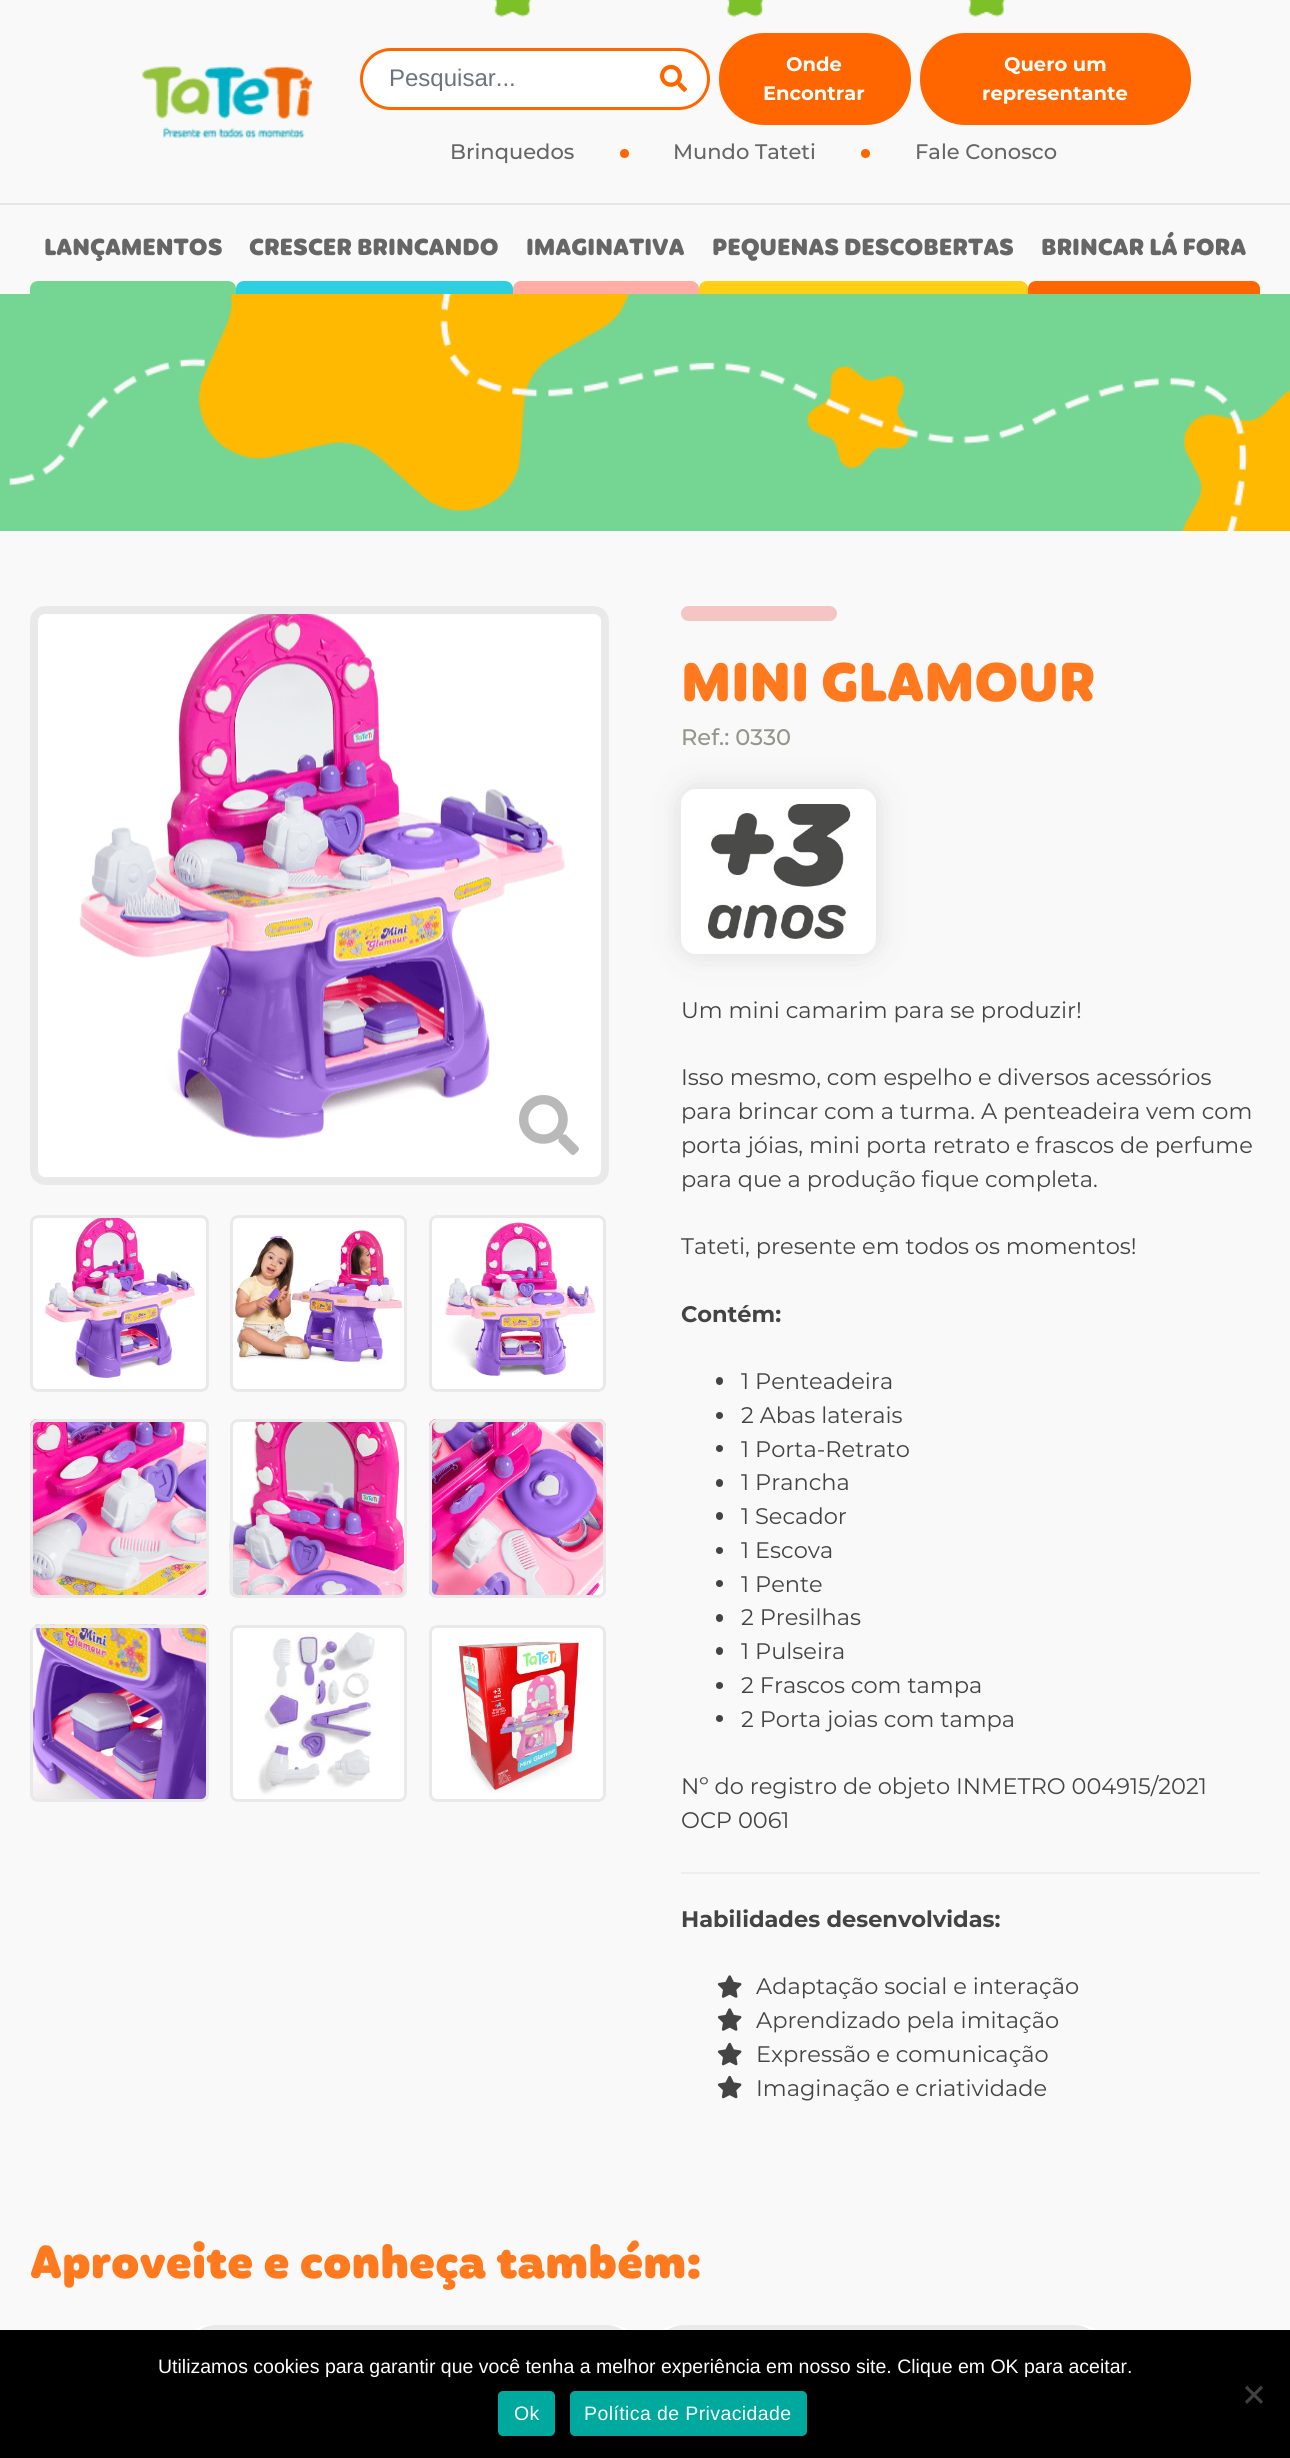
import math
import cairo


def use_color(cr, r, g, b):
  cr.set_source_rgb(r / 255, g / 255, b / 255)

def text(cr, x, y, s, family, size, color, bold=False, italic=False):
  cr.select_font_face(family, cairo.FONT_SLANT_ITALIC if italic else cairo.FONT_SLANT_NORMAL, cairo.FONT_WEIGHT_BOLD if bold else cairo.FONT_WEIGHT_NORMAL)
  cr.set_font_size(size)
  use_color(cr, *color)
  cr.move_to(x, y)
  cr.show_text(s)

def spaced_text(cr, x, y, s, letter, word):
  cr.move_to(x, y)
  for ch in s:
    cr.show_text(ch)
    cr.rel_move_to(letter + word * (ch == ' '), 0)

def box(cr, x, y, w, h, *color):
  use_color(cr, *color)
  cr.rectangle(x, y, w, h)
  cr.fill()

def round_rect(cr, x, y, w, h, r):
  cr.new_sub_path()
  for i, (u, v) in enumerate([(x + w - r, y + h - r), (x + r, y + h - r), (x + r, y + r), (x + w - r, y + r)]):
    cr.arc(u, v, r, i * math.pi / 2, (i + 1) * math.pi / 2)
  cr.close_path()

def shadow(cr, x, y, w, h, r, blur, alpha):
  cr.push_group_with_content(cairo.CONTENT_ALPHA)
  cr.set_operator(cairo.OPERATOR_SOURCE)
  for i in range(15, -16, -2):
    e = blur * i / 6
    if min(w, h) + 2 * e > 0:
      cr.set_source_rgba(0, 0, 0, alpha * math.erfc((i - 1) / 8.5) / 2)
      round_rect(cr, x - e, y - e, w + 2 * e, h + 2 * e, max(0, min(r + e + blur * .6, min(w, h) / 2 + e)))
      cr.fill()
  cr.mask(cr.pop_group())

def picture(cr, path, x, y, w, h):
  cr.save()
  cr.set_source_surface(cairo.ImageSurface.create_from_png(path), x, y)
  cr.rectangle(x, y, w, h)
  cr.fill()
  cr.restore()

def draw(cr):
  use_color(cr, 249, 249, 249)
  cr.paint()
  box(cr, 0, 203, 1290, 2, 229, 229, 229)
  picture(cr, "img_01.png", 142, 66, 170, 72)
  use_color(cr, 255, 255, 255)
  round_rect(cr, 361.5, 49.5, 347, 59, 29.5)
  cr.fill_preserve()
  use_color(cr, 255, 102, 0)
  cr.set_line_width(3)
  cr.stroke()
  picture(cr, "img_02.png", 660, 64, 27, 28)
  round_rect(cr, 719, 33, 192, 92, 45)
  cr.fill()
  round_rect(cr, 920, 33, 271, 92, 45)
  cr.fill()
  picture(cr, "img_03.png", 494, 0, 38, 17)
  cr.arc(624.5, 153.5, 4.5, 0, 2 * math.pi)
  cr.fill()
  picture(cr, "img_04.png", 727, 0, 37, 17)
  cr.arc(865.5, 153.5, 4.5, 0, 2 * math.pi)
  cr.fill()
  picture(cr, "img_05.png", 968, 0, 38, 17)
  use_color(cr, 117, 214, 147)
  cr.new_path()
  cr.move_to(38, 281)
  cr.line_to(228, 281)
  cr.curve_to(232.5, 281, 236, 284.5, 236, 289)
  cr.line_to(236, 294)
  cr.line_to(30, 294)
  cr.line_to(30, 289)
  cr.curve_to(30, 284.5, 33.5, 281, 38, 281)
  cr.close_path()
  cr.fill()
  use_color(cr, 45, 208, 225)
  cr.new_path()
  cr.move_to(244, 281)
  cr.line_to(505, 281)
  cr.curve_to(509.5, 281, 513, 284.5, 513, 289)
  cr.line_to(513, 294)
  cr.line_to(236, 294)
  cr.line_to(236, 289)
  cr.curve_to(236, 284.5, 239.5, 281, 244, 281)
  cr.close_path()
  cr.fill()
  use_color(cr, 255, 173, 165)
  cr.new_path()
  cr.move_to(521, 281)
  cr.line_to(691, 281)
  cr.curve_to(695.5, 281, 699, 284.5, 699, 289)
  cr.line_to(699, 294)
  cr.line_to(513, 294)
  cr.line_to(513, 289)
  cr.curve_to(513, 284.5, 516.5, 281, 521, 281)
  cr.close_path()
  cr.fill()
  use_color(cr, 255, 208, 22)
  cr.new_path()
  cr.move_to(707, 281)
  cr.line_to(1020, 281)
  cr.curve_to(1024.5, 281, 1028, 284.5, 1028, 289)
  cr.line_to(1028, 294)
  cr.line_to(699, 294)
  cr.line_to(699, 289)
  cr.curve_to(699, 284.5, 702.5, 281, 707, 281)
  cr.close_path()
  cr.fill()
  use_color(cr, 255, 102, 0)
  cr.new_path()
  cr.move_to(1036, 281)
  cr.line_to(1252, 281)
  cr.curve_to(1256.5, 281, 1260, 284.5, 1260, 289)
  cr.line_to(1260, 294)
  cr.line_to(1028, 294)
  cr.line_to(1028, 289)
  cr.curve_to(1028, 284.5, 1031.5, 281, 1036, 281)
  cr.close_path()
  cr.fill()
  picture(cr, "img_06.png", 0, 294, 1290, 237)
  use_color(cr, 255, 255, 255)
  round_rect(cr, 30, 606, 579, 579, 15)
  cr.fill()
  picture(cr, "img_07.png", 79, 614, 486, 525)
  round_rect(cr, 34, 610, 571, 571, 11)
  use_color(cr, 233, 233, 233)
  cr.set_line_width(8)
  cr.stroke()
  picture(cr, "img_08.png", 519, 1095, 60, 60)
  use_color(cr, 255, 255, 255)
  round_rect(cr, 30, 1215, 179, 177, 8)
  cr.fill()
  picture(cr, "img_09.png", 45, 1218, 150, 160)
  round_rect(cr, 31.5, 1216.5, 176, 174, 6.5)
  use_color(cr, 233, 233, 233)
  cr.set_line_width(3)
  cr.stroke()
  use_color(cr, 255, 255, 255)
  round_rect(cr, 230, 1215, 177, 177, 8)
  cr.fill()
  picture(cr, "img_10.png", 230, 1219, 172, 145)
  round_rect(cr, 231.5, 1216.5, 174, 174, 6.5)
  use_color(cr, 233, 233, 233)
  cr.stroke()
  use_color(cr, 255, 255, 255)
  round_rect(cr, 429, 1215, 177, 177, 8)
  cr.fill()
  picture(cr, "img_11.png", 445, 1222, 151, 154)
  round_rect(cr, 430.5, 1216.5, 174, 174, 6.5)
  use_color(cr, 233, 233, 233)
  cr.stroke()
  picture(cr, "img_12.png", 30, 1419, 179, 179)
  round_rect(cr, 31.5, 1420.5, 176, 176, 6.5)
  cr.stroke()
  picture(cr, "img_13.png", 229, 1419, 178, 179)
  round_rect(cr, 231.5, 1420.5, 174, 176, 6.5)
  cr.stroke()
  picture(cr, "img_14.png", 429, 1419, 177, 179)
  round_rect(cr, 430.5, 1420.5, 174, 176, 6.5)
  cr.stroke()
  picture(cr, "img_15.png", 30, 1624, 179, 178)
  round_rect(cr, 31.5, 1626.5, 176, 174, 6.5)
  cr.stroke()
  use_color(cr, 255, 255, 255)
  round_rect(cr, 230, 1625, 177, 177, 8)
  cr.fill()
  picture(cr, "img_16.png", 230, 1625, 146, 170)
  round_rect(cr, 231.5, 1626.5, 174, 174, 6.5)
  use_color(cr, 233, 233, 233)
  cr.stroke()
  use_color(cr, 255, 255, 255)
  round_rect(cr, 429, 1625, 177, 177, 8)
  cr.fill()
  picture(cr, "img_17.png", 433, 1625, 169, 168)
  round_rect(cr, 430.5, 1626.5, 174, 174, 6.5)
  use_color(cr, 233, 233, 233)
  cr.stroke()
  use_color(cr, 245, 197, 195)
  round_rect(cr, 681, 606, 156, 15, 7.5)
  cr.fill()
  use_color(cr, 221, 221, 221)
  shadow(cr, 681, 789, 195, 165, 15, 15, 1)
  use_color(cr, 255, 255, 255)
  round_rect(cr, 681, 789, 195, 165, 15)
  cr.fill()
  picture(cr, "img_18.png", 708, 804, 143, 135)
  use_color(cr, 68, 68, 68)
  round_rect(cr, 716, 1377, 7, 8, 3.5)
  cr.fill()
  cr.arc(719.5, 1415.5, 3.5, 0, 2 * math.pi)
  cr.fill()
  cr.arc(719.5, 1448.5, 3.5, 0, 2 * math.pi)
  cr.fill()
  round_rect(cr, 716, 1479, 7, 8, 3.5)
  cr.fill()
  round_rect(cr, 716, 1512, 7, 8, 3.5)
  cr.fill()
  cr.arc(719.5, 1550.5, 3.5, 0, 2 * math.pi)
  cr.fill()
  cr.arc(719.5, 1583.5, 3.5, 0, 2 * math.pi)
  cr.fill()
  round_rect(cr, 716, 1614, 7, 8, 3.5)
  cr.fill()
  round_rect(cr, 716, 1647, 7, 8, 3.5)
  cr.fill()
  cr.arc(719.5, 1685.5, 3.5, 0, 2 * math.pi)
  cr.fill()
  cr.arc(719.5, 1718.5, 3.5, 0, 2 * math.pi)
  cr.fill()
  box(cr, 681, 1872, 579, 2, 238, 238, 238)
  picture(cr, "img_19.png", 717, 1975, 25, 23)
  picture(cr, "img_19.png", 717, 2008, 25, 23)
  picture(cr, "img_20.png", 717, 2042, 25, 24)
  picture(cr, "img_20.png", 717, 2075, 25, 24)
  use_color(cr, 255, 255, 255)
  round_rect(cr, 186, 2325, 450, 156, 23)
  cr.fill()
  round_rect(cr, 190, 2329, 442, 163, 26)
  use_color(cr, 233, 233, 233)
  cr.set_line_width(8)
  cr.stroke()
  use_color(cr, 255, 255, 255)
  round_rect(cr, 654, 2325, 450, 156, 23)
  cr.fill()
  round_rect(cr, 658, 2329, 442, 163, 26)
  use_color(cr, 233, 233, 233)
  cr.stroke()
  box(cr, 0, 2330, 1290, 128, 0, 0, 0)
  use_color(cr, 64, 64, 64)
  cr.new_path()
  cr.move_to(1261, 2385.5)
  cr.line_to(1263, 2388)
  cr.line_to(1247, 2404)
  cr.line_to(1245, 2401.5)
  cr.close_path()
  cr.fill()
  cr.new_path()
  cr.move_to(1245, 2388)
  cr.line_to(1247, 2385.5)
  cr.line_to(1263, 2401.5)
  cr.line_to(1261, 2404)
  cr.close_path()
  cr.fill()
  use_color(cr, 0, 169, 157)
  round_rect(cr, 498, 2391, 57, 45, 5)
  cr.fill()
  round_rect(cr, 570, 2391, 237, 45, 5)
  cr.fill()
  text(cr, 389, 86, "Pesquisar...", "Liberation Sans", 24, (108, 117, 125))
  text(cr, 786, 71, "Onde", "Montserrat", 19.5, (255, 255, 255), bold=True)
  text(cr, 763, 100, "Encontrar", "Montserrat", 19.5, (255, 255, 255), bold=True)
  text(cr, 1004, 71, "Quero um", "Montserrat", 19.5, (255, 255, 255), bold=True)
  text(cr, 982, 100, "representante", "Montserrat", 19.5, (255, 255, 255), bold=True)
  text(cr, 450, 159, "Brinquedos", "Montserrat Medium", 21, (102, 102, 102))
  text(cr, 673, 159, "Mundo Tateti", "Montserrat Medium", 21, (102, 102, 102))
  text(cr, 915, 159, "Fale Conosco", "Montserrat Medium", 21, (102, 102, 102))
  text(cr, 44, 255, "LANÇAMENTOS", "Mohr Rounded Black", 22.5, (102, 102, 102))
  text(cr, 249, 255, "CRESCER BRINCANDO", "Mohr Rounded Black", 22.5, (102, 102, 102))
  text(cr, 526, 255, "IMAGINATIVA", "Mohr Rounded Black", 22.5, (102, 102, 102))
  text(cr, 712, 255, "PEQUENAS DESCOBERTAS", "Mohr Rounded Black", 22.5, (102, 102, 102))
  text(cr, 1041, 255, "BRINCAR LÁ FORA", "Mohr Rounded Black", 22.5, (102, 102, 102))
  text(cr, 681, 701, "MINI GLAMOUR", "Mohr Rounded Black", 52.5, (255, 121, 31))
  text(cr, 681, 745, "Ref.: 0330", "Montserrat Medium", 22.5, (147, 150, 138))
  text(cr, 681, 1018, "Um mini camarim para se produzir!", "Montserrat", 22.5, (68, 68, 68))
  text(cr, 681, 1085, "Isso mesmo, com espelho e diversos acessórios", "Montserrat", 22.5, (68, 68, 68))
  text(cr, 681, 1119, "para brincar com a turma. A penteadeira vem com", "Montserrat", 22.5, (68, 68, 68))
  text(cr, 681, 1153, "porta jóias, mini porta retrato e frascos de perfume", "Montserrat", 22.5, (68, 68, 68))
  text(cr, 681, 1187, "para que a produção fique completa.", "Montserrat", 22.5, (68, 68, 68))
  text(cr, 681, 1254, "Tateti, presente em todos os momentos!", "Montserrat", 22.5, (68, 68, 68))
  text(cr, 681, 1322, "Contém:", "Montserrat", 22.5, (68, 68, 68), bold=True)
  text(cr, 741, 1389, "1 Penteadeira", "Montserrat", 22.5, (68, 68, 68))
  text(cr, 741, 1423, "2 Abas laterais", "Montserrat", 22.5, (68, 68, 68))
  text(cr, 741, 1457, "1 Porta-Retrato", "Montserrat", 22.5, (68, 68, 68))
  text(cr, 741, 1490, "1 Prancha", "Montserrat", 22.5, (68, 68, 68))
  text(cr, 741, 1524, "1 Secador", "Montserrat", 22.5, (68, 68, 68))
  text(cr, 741, 1558, "1 Escova", "Montserrat", 22.5, (68, 68, 68))
  text(cr, 741, 1592, "1 Pente", "Montserrat", 22.5, (68, 68, 68))
  text(cr, 741, 1625, "2 Presilhas", "Montserrat", 22.5, (68, 68, 68))
  text(cr, 741, 1659, "1 Pulseira", "Montserrat", 22.5, (68, 68, 68))
  text(cr, 741, 1693, "2 Frascos com tampa", "Montserrat", 22.5, (68, 68, 68))
  text(cr, 741, 1727, "2 Porta joias com tampa", "Montserrat", 22.5, (68, 68, 68))
  text(cr, 681, 1794, "Nº do registro de objeto INMETRO 004915/2021", "Montserrat", 22.5, (68, 68, 68))
  text(cr, 681, 1828, "OCP 0061", "Montserrat", 22.5, (68, 68, 68))
  text(cr, 681, 1927, "Habilidades desenvolvidas:", "Montserrat", 22.5, (68, 68, 68), bold=True)
  text(cr, 756, 1994, "Adaptação social e interação", "Montserrat", 22.5, (68, 68, 68))
  text(cr, 756, 2028, "Aprendizado pela imitação", "Montserrat", 22.5, (68, 68, 68))
  text(cr, 756, 2062, "Expressão e comunicação", "Montserrat", 22.5, (68, 68, 68))
  text(cr, 756, 2096, "Imaginação e criatividade", "Montserrat", 22.5, (68, 68, 68))
  text(cr, 30, 2278, "Aproveite e conheça também:", "Mohr Rounded Black", 45, (255, 121, 31))
  text(cr, 158, 2373, "Utilizamos cookies para garantir que você tenha a melhor experiência em nosso site. Clique em OK para aceitar.", "Liberation Sans", 19.5, (255, 255, 255))
  spaced_text(cr, 514, 2420, "Ok", 0.4, 0)
  spaced_text(cr, 584, 2420, "Política de Privacidade", 0.4, 0)


surface = cairo.ImageSurface(cairo.FORMAT_RGB24, 1290, 2458)
cr = cairo.Context(surface)
options = cairo.FontOptions()
options.set_hint_metrics(cairo.HINT_METRICS_OFF)
options.set_hint_style(cairo.HINT_STYLE_NONE)
cr.set_font_options(options)
cr.set_miter_limit(4)
draw(cr)
surface.write_to_png("out.png")
